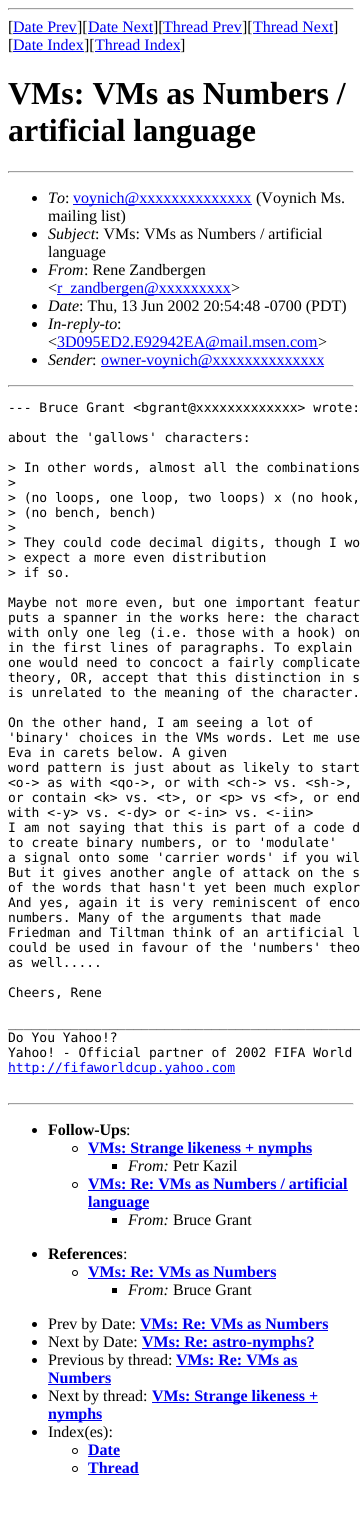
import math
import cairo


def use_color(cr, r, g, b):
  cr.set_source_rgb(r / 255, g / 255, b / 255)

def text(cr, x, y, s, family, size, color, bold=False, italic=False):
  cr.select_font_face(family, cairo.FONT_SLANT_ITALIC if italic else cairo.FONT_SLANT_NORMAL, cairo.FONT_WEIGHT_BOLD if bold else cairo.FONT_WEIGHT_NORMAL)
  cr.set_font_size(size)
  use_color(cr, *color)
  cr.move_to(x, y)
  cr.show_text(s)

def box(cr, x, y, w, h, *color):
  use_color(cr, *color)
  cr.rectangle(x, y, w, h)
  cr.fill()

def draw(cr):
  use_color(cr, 255, 255, 255)
  cr.paint()
  box(cr, 8, 8, 346, 1, 159, 159, 159)
  box(cr, 353, 8, 1, 2, 238, 238, 238)
  box(cr, 8, 9, 346, 1, 238, 238, 238)
  box(cr, 8, 8, 1, 2, 159, 159, 159)
  box(cr, 13, 33, 64, 1, 0, 0, 238)
  box(cr, 88, 33, 65, 1, 0, 0, 238)
  box(cr, 163, 33, 79, 1, 0, 0, 238)
  box(cr, 253, 33, 80, 1, 0, 0, 238)
  box(cr, 13, 51, 71, 1, 0, 0, 238)
  box(cr, 95, 51, 85, 1, 0, 0, 238)
  box(cr, 8, 171, 346, 1, 159, 159, 159)
  box(cr, 353, 171, 1, 2, 238, 238, 238)
  box(cr, 8, 172, 346, 1, 238, 238, 238)
  box(cr, 8, 171, 1, 2, 159, 159, 159)
  use_color(cr, 0, 0, 0)
  cr.arc(34.5, 198.5, 2.5, 0, 2 * math.pi)
  cr.fill()
  box(cr, 73, 204, 179, 1, 0, 0, 238)
  use_color(cr, 0, 0, 0)
  cr.arc(34.5, 234.5, 2.5, 0, 2 * math.pi)
  cr.fill()
  cr.arc(34.5, 270.5, 2.5, 0, 2 * math.pi)
  cr.fill()
  box(cr, 57, 294, 174, 1, 0, 0, 238)
  use_color(cr, 0, 0, 0)
  cr.arc(34.5, 306.5, 2.5, 0, 2 * math.pi)
  cr.fill()
  cr.arc(34.5, 324.5, 2.5, 0, 2 * math.pi)
  cr.fill()
  box(cr, 57, 348, 261, 1, 0, 0, 238)
  use_color(cr, 0, 0, 0)
  cr.arc(34.5, 360.5, 2.5, 0, 2 * math.pi)
  cr.fill()
  box(cr, 101, 366, 223, 1, 0, 0, 238)
  box(cr, 8, 385, 346, 1, 159, 159, 159)
  box(cr, 353, 385, 1, 2, 238, 238, 238)
  box(cr, 8, 386, 346, 1, 238, 238, 238)
  box(cr, 8, 385, 1, 2, 159, 159, 159)
  box(cr, 8, 1073, 227, 1, 0, 0, 238)
  box(cr, 8, 1103, 346, 1, 159, 159, 159)
  box(cr, 353, 1103, 1, 2, 238, 238, 238)
  box(cr, 8, 1104, 346, 1, 238, 238, 238)
  box(cr, 8, 1103, 1, 2, 159, 159, 159)
  use_color(cr, 0, 0, 0)
  cr.arc(34.5, 1130.5, 2.5, 0, 2 * math.pi)
  cr.fill()
  cr.arc(75, 1149, 2.5, 0, 2 * math.pi)
  cr.set_line_width(1)
  cr.stroke()
  box(cr, 88, 1154, 224, 1, 0, 0, 238)
  box(cr, 112, 1164, 5, 5, 0, 0, 0)
  cr.arc(75, 1185, 2.5, 0, 2 * math.pi)
  cr.stroke()
  box(cr, 88, 1190, 260, 1, 0, 0, 238)
  box(cr, 88, 1208, 61, 1, 0, 0, 238)
  box(cr, 112, 1218, 5, 5, 0, 0, 0)
  cr.arc(34.5, 1254.5, 2.5, 0, 2 * math.pi)
  cr.fill()
  cr.arc(75, 1273, 2.5, 0, 2 * math.pi)
  cr.stroke()
  box(cr, 88, 1278, 188, 1, 0, 0, 238)
  box(cr, 112, 1288, 5, 5, 0, 0, 0)
  cr.arc(34.5, 1324.5, 2.5, 0, 2 * math.pi)
  cr.fill()
  box(cr, 140, 1330, 188, 1, 0, 0, 238)
  use_color(cr, 0, 0, 0)
  cr.arc(34.5, 1342.5, 2.5, 0, 2 * math.pi)
  cr.fill()
  box(cr, 142, 1348, 172, 1, 0, 0, 238)
  use_color(cr, 0, 0, 0)
  cr.arc(34.5, 1360.5, 2.5, 0, 2 * math.pi)
  cr.fill()
  box(cr, 176, 1366, 122, 1, 0, 0, 238)
  box(cr, 48, 1384, 63, 1, 0, 0, 238)
  use_color(cr, 0, 0, 0)
  cr.arc(34.5, 1396.5, 2.5, 0, 2 * math.pi)
  cr.fill()
  box(cr, 152, 1402, 166, 1, 0, 0, 238)
  box(cr, 48, 1420, 54, 1, 0, 0, 238)
  use_color(cr, 0, 0, 0)
  cr.arc(34.5, 1432.5, 2.5, 0, 2 * math.pi)
  cr.fill()
  cr.arc(75, 1451, 2.5, 0, 2 * math.pi)
  cr.stroke()
  box(cr, 88, 1456, 32, 1, 0, 0, 238)
  cr.arc(75, 1469, 2.5, 0, 2 * math.pi)
  use_color(cr, 0, 0, 0)
  cr.stroke()
  box(cr, 88, 1474, 51, 1, 0, 0, 238)
  text(cr, 8, 32, "[", "Liberation Serif", 16, (0, 0, 0))
  text(cr, 13, 32, "Date Prev", "Liberation Serif", 16, (0, 0, 238))
  text(cr, 77, 32, "][", "Liberation Serif", 16, (0, 0, 0))
  text(cr, 88, 32, "Date Next", "Liberation Serif", 16, (0, 0, 238))
  text(cr, 153, 32, "][", "Liberation Serif", 16, (0, 0, 0))
  text(cr, 163, 32, "Thread Prev", "Liberation Serif", 16, (0, 0, 238))
  text(cr, 242, 32, "][", "Liberation Serif", 16, (0, 0, 0))
  text(cr, 253, 32, "Thread Next", "Liberation Serif", 16, (0, 0, 238))
  text(cr, 333, 32, "]", "Liberation Serif", 16, (0, 0, 0))
  text(cr, 8, 50, "[", "Liberation Serif", 16, (0, 0, 0))
  text(cr, 13, 50, "Date Index", "Liberation Serif", 16, (0, 0, 238))
  text(cr, 84, 50, "][", "Liberation Serif", 16, (0, 0, 0))
  text(cr, 95, 50, "Thread Index", "Liberation Serif", 16, (0, 0, 238))
  text(cr, 180, 50, "]", "Liberation Serif", 16, (0, 0, 0))
  text(cr, 8, 104, "VMs: VMs as Numbers /", "Liberation Serif", 32, (0, 0, 0), bold=True)
  text(cr, 8, 141, "artificial language", "Liberation Serif", 32, (0, 0, 0), bold=True)
  text(cr, 48, 203, "To", "Liberation Serif", 16, (0, 0, 0), italic=True)
  text(cr, 65, 203, ":", "Liberation Serif", 16, (0, 0, 0))
  text(cr, 73, 203, "voynich@xxxxxxxxxxxxxx", "Liberation Serif", 16, (0, 0, 238))
  text(cr, 256, 203, "(Voynich Ms.", "Liberation Serif", 16, (0, 0, 0))
  text(cr, 48, 221, "mailing list)", "Liberation Serif", 16, (0, 0, 0))
  text(cr, 48, 239, "Subject", "Liberation Serif", 16, (0, 0, 0), italic=True)
  text(cr, 95, 239, ": VMs: VMs as Numbers / artificial", "Liberation Serif", 16, (0, 0, 0))
  text(cr, 48, 257, "language", "Liberation Serif", 16, (0, 0, 0))
  text(cr, 48, 275, "From", "Liberation Serif", 16, (0, 0, 0), italic=True)
  text(cr, 84, 275, ": Rene Zandbergen", "Liberation Serif", 16, (0, 0, 0))
  text(cr, 48, 293, "<", "Liberation Serif", 16, (0, 0, 0))
  text(cr, 57, 293, "r_zandbergen@xxxxxxxxx", "Liberation Serif", 16, (0, 0, 238))
  text(cr, 231, 293, ">", "Liberation Serif", 16, (0, 0, 0))
  text(cr, 48, 311, "Date", "Liberation Serif", 16, (0, 0, 0), italic=True)
  text(cr, 79, 311, ": Thu, 13 Jun 2002 20:54:48 -0700 (PDT)", "Liberation Serif", 16, (0, 0, 0))
  text(cr, 48, 329, "In-reply-to", "Liberation Serif", 16, (0, 0, 0), italic=True)
  text(cr, 117, 329, ":", "Liberation Serif", 16, (0, 0, 0))
  text(cr, 48, 347, "<", "Liberation Serif", 16, (0, 0, 0))
  text(cr, 57, 347, "3D095ED2.E92942EA@mail.msen.com", "Liberation Serif", 16, (0, 0, 238))
  text(cr, 318, 347, ">", "Liberation Serif", 16, (0, 0, 0))
  text(cr, 48, 365, "Sender", "Liberation Serif", 16, (0, 0, 0), italic=True)
  text(cr, 92, 365, ":", "Liberation Serif", 16, (0, 0, 0))
  text(cr, 101, 365, "owner-voynich@xxxxxxxxxxxxxx", "Liberation Serif", 16, (0, 0, 238))
  text(cr, 8, 412, "--- Bruce Grant <bgrant@xxxxxxxxxxxxx> wrote:", "DejaVu Sans Mono", 13, (0, 0, 0))
  text(cr, 8, 442, "about the 'gallows' characters:", "DejaVu Sans Mono", 13, (0, 0, 0))
  text(cr, 8, 472, "> In other words, almost all the combinations", "DejaVu Sans Mono", 13, (0, 0, 0))
  text(cr, 8, 487, ">", "DejaVu Sans Mono", 13, (0, 0, 0))
  text(cr, 8, 502, "> (no loops, one loop, two loops) x (no hook,", "DejaVu Sans Mono", 13, (0, 0, 0))
  text(cr, 8, 517, "> (no bench, bench)", "DejaVu Sans Mono", 13, (0, 0, 0))
  text(cr, 8, 532, ">", "DejaVu Sans Mono", 13, (0, 0, 0))
  text(cr, 8, 547, "> They could code decimal digits, though I wo", "DejaVu Sans Mono", 13, (0, 0, 0))
  text(cr, 8, 562, "> expect a more even distribution", "DejaVu Sans Mono", 13, (0, 0, 0))
  text(cr, 8, 577, "> if so.", "DejaVu Sans Mono", 13, (0, 0, 0))
  text(cr, 8, 607, "Maybe not more even, but one important featur", "DejaVu Sans Mono", 13, (0, 0, 0))
  text(cr, 8, 622, "puts a spanner in the works here: the charact", "DejaVu Sans Mono", 13, (0, 0, 0))
  text(cr, 8, 637, "with only one leg (i.e. those with a hook) on", "DejaVu Sans Mono", 13, (0, 0, 0))
  text(cr, 8, 652, "in the first lines of paragraphs. To explain", "DejaVu Sans Mono", 13, (0, 0, 0))
  text(cr, 8, 667, "one would need to concoct a fairly complicate", "DejaVu Sans Mono", 13, (0, 0, 0))
  text(cr, 8, 682, "theory, OR, accept that this distinction in s", "DejaVu Sans Mono", 13, (0, 0, 0))
  text(cr, 8, 697, "is unrelated to the meaning of the character.", "DejaVu Sans Mono", 13, (0, 0, 0))
  text(cr, 8, 727, "On the other hand, I am seeing a lot of", "DejaVu Sans Mono", 13, (0, 0, 0))
  text(cr, 8, 742, "'binary' choices in the VMs words. Let me use", "DejaVu Sans Mono", 13, (0, 0, 0))
  text(cr, 8, 757, "Eva in carets below. A given", "DejaVu Sans Mono", 13, (0, 0, 0))
  text(cr, 8, 772, "word pattern is just about as likely to start", "DejaVu Sans Mono", 13, (0, 0, 0))
  text(cr, 8, 787, "<o-> as with <qo->, or with <ch-> vs. <sh->,", "DejaVu Sans Mono", 13, (0, 0, 0))
  text(cr, 8, 802, "or contain <k> vs. <t>, or <p> vs <f>, or end", "DejaVu Sans Mono", 13, (0, 0, 0))
  text(cr, 8, 817, "with <-y> vs. <-dy> or <-in> vs. <-iin>", "DejaVu Sans Mono", 13, (0, 0, 0))
  text(cr, 8, 832, "I am not saying that this is part of a code d", "DejaVu Sans Mono", 13, (0, 0, 0))
  text(cr, 8, 847, "to create binary numbers, or to 'modulate'", "DejaVu Sans Mono", 13, (0, 0, 0))
  text(cr, 8, 862, "a signal onto some 'carrier words' if you wil", "DejaVu Sans Mono", 13, (0, 0, 0))
  text(cr, 8, 877, "But it gives another angle of attack on the s", "DejaVu Sans Mono", 13, (0, 0, 0))
  text(cr, 8, 892, "of the words that hasn't yet been much explor", "DejaVu Sans Mono", 13, (0, 0, 0))
  text(cr, 8, 907, "And yes, again it is very reminiscent of enco", "DejaVu Sans Mono", 13, (0, 0, 0))
  text(cr, 8, 922, "numbers. Many of the arguments that made", "DejaVu Sans Mono", 13, (0, 0, 0))
  text(cr, 8, 937, "Friedman and Tiltman think of an artificial l", "DejaVu Sans Mono", 13, (0, 0, 0))
  text(cr, 8, 952, "could be used in favour of the 'numbers' theo", "DejaVu Sans Mono", 13, (0, 0, 0))
  text(cr, 8, 967, "as well.....", "DejaVu Sans Mono", 13, (0, 0, 0))
  text(cr, 8, 997, "Cheers, Rene", "DejaVu Sans Mono", 13, (0, 0, 0))
  text(cr, 8, 1027, "_____________________________________________", "DejaVu Sans Mono", 13, (0, 0, 0))
  text(cr, 8, 1042, "Do You Yahoo!?", "DejaVu Sans Mono", 13, (0, 0, 0))
  text(cr, 8, 1057, "Yahoo! - Official partner of 2002 FIFA World", "DejaVu Sans Mono", 13, (0, 0, 0))
  text(cr, 8, 1072, "http://fifaworldcup.yahoo.com", "DejaVu Sans Mono", 13, (0, 0, 238))
  text(cr, 48, 1135, "Follow-Ups", "Liberation Serif", 16, (0, 0, 0), bold=True)
  text(cr, 126, 1135, ":", "Liberation Serif", 16, (0, 0, 0))
  text(cr, 88, 1153, "VMs: Strange likeness + nymphs", "Liberation Serif", 16, (0, 0, 238), bold=True)
  text(cr, 128, 1171, "From:", "Liberation Serif", 16, (0, 0, 0), italic=True)
  text(cr, 173, 1171, "Petr Kazil", "Liberation Serif", 16, (0, 0, 0))
  text(cr, 88, 1189, "VMs: Re: VMs as Numbers / artificial", "Liberation Serif", 16, (0, 0, 238), bold=True)
  text(cr, 88, 1207, "language", "Liberation Serif", 16, (0, 0, 238), bold=True)
  text(cr, 128, 1225, "From:", "Liberation Serif", 16, (0, 0, 0), italic=True)
  text(cr, 173, 1225, "Bruce Grant", "Liberation Serif", 16, (0, 0, 0))
  text(cr, 48, 1259, "References", "Liberation Serif", 16, (0, 0, 0), bold=True)
  text(cr, 123, 1259, ":", "Liberation Serif", 16, (0, 0, 0))
  text(cr, 88, 1277, "VMs: Re: VMs as Numbers", "Liberation Serif", 16, (0, 0, 238), bold=True)
  text(cr, 128, 1295, "From:", "Liberation Serif", 16, (0, 0, 0), italic=True)
  text(cr, 173, 1295, "Bruce Grant", "Liberation Serif", 16, (0, 0, 0))
  text(cr, 48, 1329, "Prev by Date:", "Liberation Serif", 16, (0, 0, 0))
  text(cr, 140, 1329, "VMs: Re: VMs as Numbers", "Liberation Serif", 16, (0, 0, 238), bold=True)
  text(cr, 48, 1347, "Next by Date:", "Liberation Serif", 16, (0, 0, 0))
  text(cr, 142, 1347, "VMs: Re: astro-nymphs?", "Liberation Serif", 16, (0, 0, 238), bold=True)
  text(cr, 48, 1365, "Previous by thread:", "Liberation Serif", 16, (0, 0, 0))
  text(cr, 176, 1365, "VMs: Re: VMs as", "Liberation Serif", 16, (0, 0, 238), bold=True)
  text(cr, 48, 1383, "Numbers", "Liberation Serif", 16, (0, 0, 238), bold=True)
  text(cr, 48, 1401, "Next by thread:", "Liberation Serif", 16, (0, 0, 0))
  text(cr, 152, 1401, "VMs: Strange likeness +", "Liberation Serif", 16, (0, 0, 238), bold=True)
  text(cr, 48, 1419, "nymphs", "Liberation Serif", 16, (0, 0, 238), bold=True)
  text(cr, 48, 1437, "Index(es):", "Liberation Serif", 16, (0, 0, 0))
  text(cr, 88, 1455, "Date", "Liberation Serif", 16, (0, 0, 238), bold=True)
  text(cr, 88, 1473, "Thread", "Liberation Serif", 16, (0, 0, 238), bold=True)


surface = cairo.ImageSurface(cairo.FORMAT_RGB24, 362, 1529)
cr = cairo.Context(surface)
options = cairo.FontOptions()
options.set_hint_metrics(cairo.HINT_METRICS_OFF)
options.set_hint_style(cairo.HINT_STYLE_NONE)
cr.set_font_options(options)
cr.set_miter_limit(4)
draw(cr)
surface.write_to_png("out.png")
